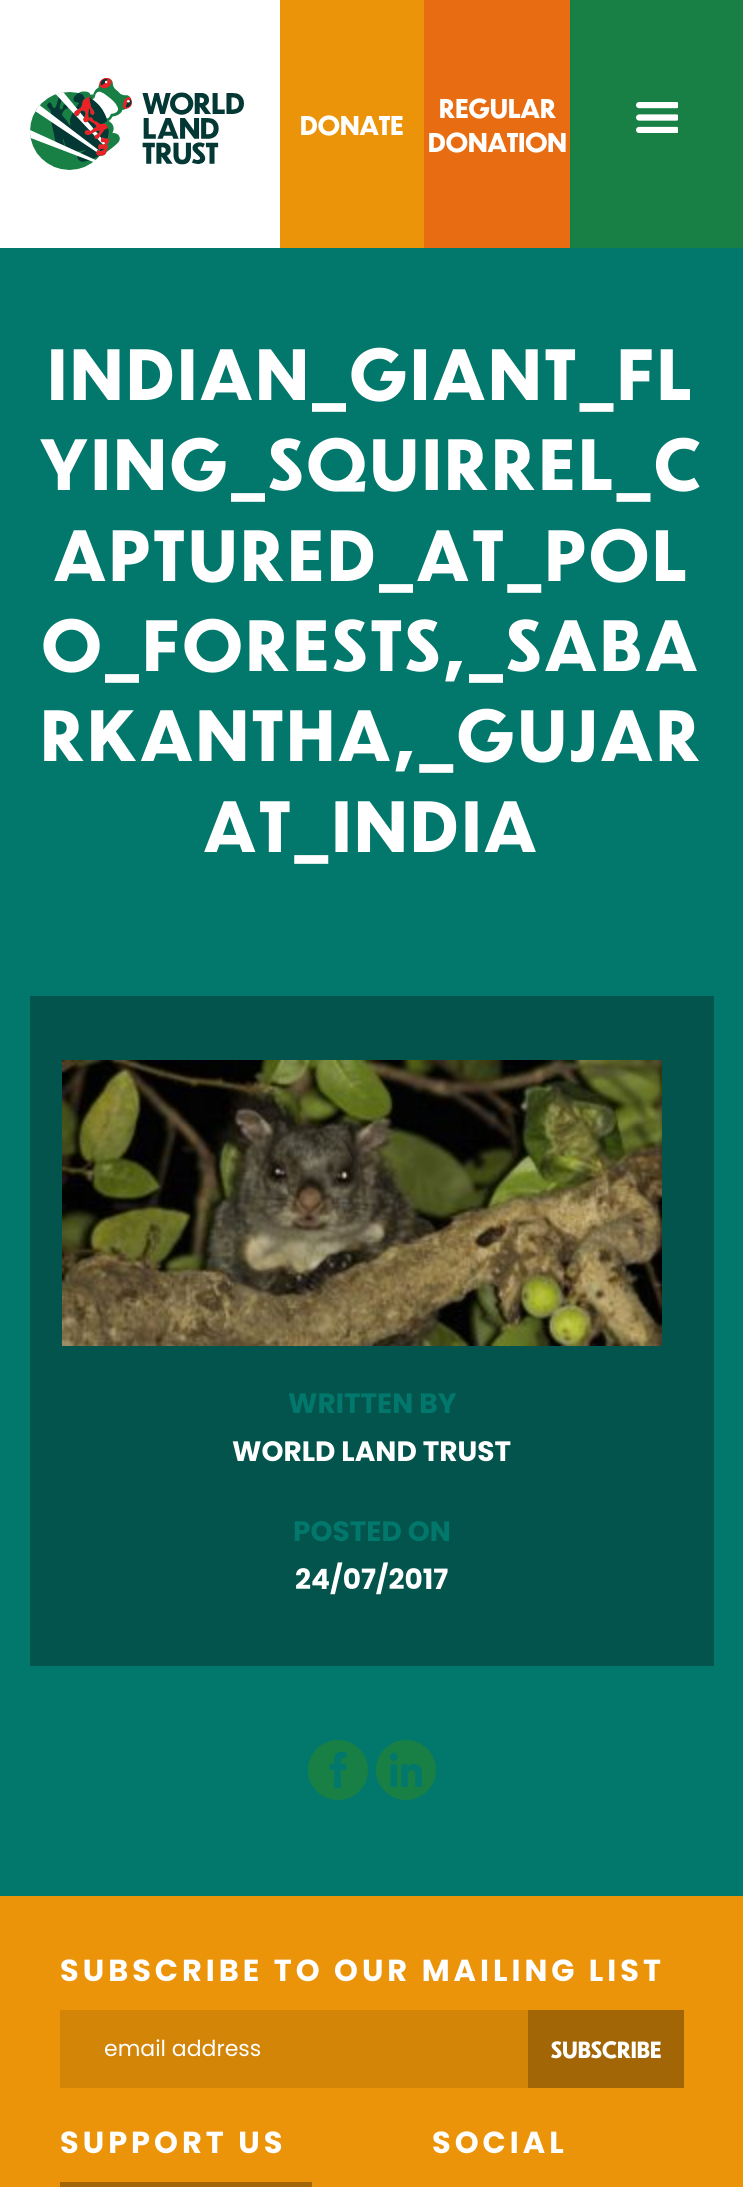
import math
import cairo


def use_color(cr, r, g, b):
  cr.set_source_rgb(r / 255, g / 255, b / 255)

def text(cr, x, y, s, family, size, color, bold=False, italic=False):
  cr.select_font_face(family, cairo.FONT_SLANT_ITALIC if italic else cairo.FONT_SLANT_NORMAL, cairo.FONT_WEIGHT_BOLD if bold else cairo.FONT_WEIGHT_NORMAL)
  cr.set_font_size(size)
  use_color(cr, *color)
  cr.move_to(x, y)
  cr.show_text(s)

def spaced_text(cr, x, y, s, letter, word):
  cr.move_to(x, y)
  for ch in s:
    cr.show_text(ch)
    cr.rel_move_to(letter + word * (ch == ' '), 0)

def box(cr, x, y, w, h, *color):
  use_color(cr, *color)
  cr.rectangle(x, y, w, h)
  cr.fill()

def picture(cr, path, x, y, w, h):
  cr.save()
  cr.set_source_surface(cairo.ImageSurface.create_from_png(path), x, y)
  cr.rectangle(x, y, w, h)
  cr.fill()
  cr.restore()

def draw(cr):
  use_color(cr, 255, 255, 255)
  cr.paint()
  picture(cr, "img_01.png", 30, 78, 214, 92)
  box(cr, 280, 0, 144, 248, 236, 148, 9)
  box(cr, 424, 0, 146, 248, 232, 109, 18)
  box(cr, 570, 0, 173, 248, 24, 128, 69)
  picture(cr, "img_02.png", 636, 102, 42, 31)
  box(cr, 0, 248, 743, 1648, 2, 119, 107)
  box(cr, 30, 996, 684, 670, 2, 84, 76)
  picture(cr, "img_03.png", 62, 1060, 600, 286)
  picture(cr, "img_04.png", 308, 1740, 60, 60)
  picture(cr, "img_05.png", 376, 1740, 60, 60)
  box(cr, 0, 1896, 743, 291, 236, 148, 9)
  box(cr, 60, 2010, 468, 78, 211, 133, 8)
  box(cr, 528, 2010, 156, 78, 162, 102, 6)
  box(cr, 60, 2182, 252, 5, 162, 102, 6)
  text(cr, 300, 135, "DONATE", "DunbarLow", 25.5, (255, 255, 255), bold=True)
  text(cr, 439, 118, "REGULAR", "DunbarLow", 25.5, (255, 255, 255), bold=True)
  text(cr, 428, 152, "DONATION", "DunbarLow", 25.5, (255, 255, 255), bold=True)
  cr.set_font_size(68)
  spaced_text(cr, 48, 400, "INDIAN_GIANT_FL", 4, 0)
  spaced_text(cr, 40, 490, "YING_SQUIRREL_C", 4, 0)
  spaced_text(cr, 54, 581, "APTURED_AT_POL", 4, 0)
  spaced_text(cr, 42, 671, "O_FORESTS,_SABA", 4, 0)
  spaced_text(cr, 41, 761, "RKANTHA,_GUJAR", 4, 0)
  spaced_text(cr, 204, 852, "AT_INDIA", 4, 0)
  text(cr, 288, 1413, "WRITTEN BY", "Poppins", 28, (2, 119, 107), bold=True)
  text(cr, 232, 1461, "WORLD LAND TRUST", "Poppins", 28, (255, 255, 255), bold=True)
  text(cr, 293, 1541, "POSTED ON", "Poppins", 28, (2, 119, 107), bold=True)
  text(cr, 295, 1589, "24/07/2017", "Poppins", 28, (255, 255, 255), bold=True)
  cr.set_font_size(30.4)
  spaced_text(cr, 60, 1981, "SUBSCRIBE TO OUR MAILING LIST", 4, 0)
  text(cr, 104, 2056, "email address", "Poppins", 22, (255, 255, 255))
  text(cr, 551, 2058, "SUBSCRIBE", "DunbarLow", 22, (255, 255, 255), bold=True)
  cr.select_font_face("Poppins", cairo.FONT_SLANT_NORMAL, cairo.FONT_WEIGHT_BOLD)
  cr.set_font_size(30.4)
  spaced_text(cr, 60, 2153, "SUPPORT US", 4, 0)
  spaced_text(cr, 432, 2153, "SOCIAL", 4, 0)


surface = cairo.ImageSurface(cairo.FORMAT_RGB24, 743, 2187)
cr = cairo.Context(surface)
options = cairo.FontOptions()
options.set_hint_metrics(cairo.HINT_METRICS_OFF)
options.set_hint_style(cairo.HINT_STYLE_NONE)
cr.set_font_options(options)
cr.set_miter_limit(4)
draw(cr)
surface.write_to_png("out.png")
